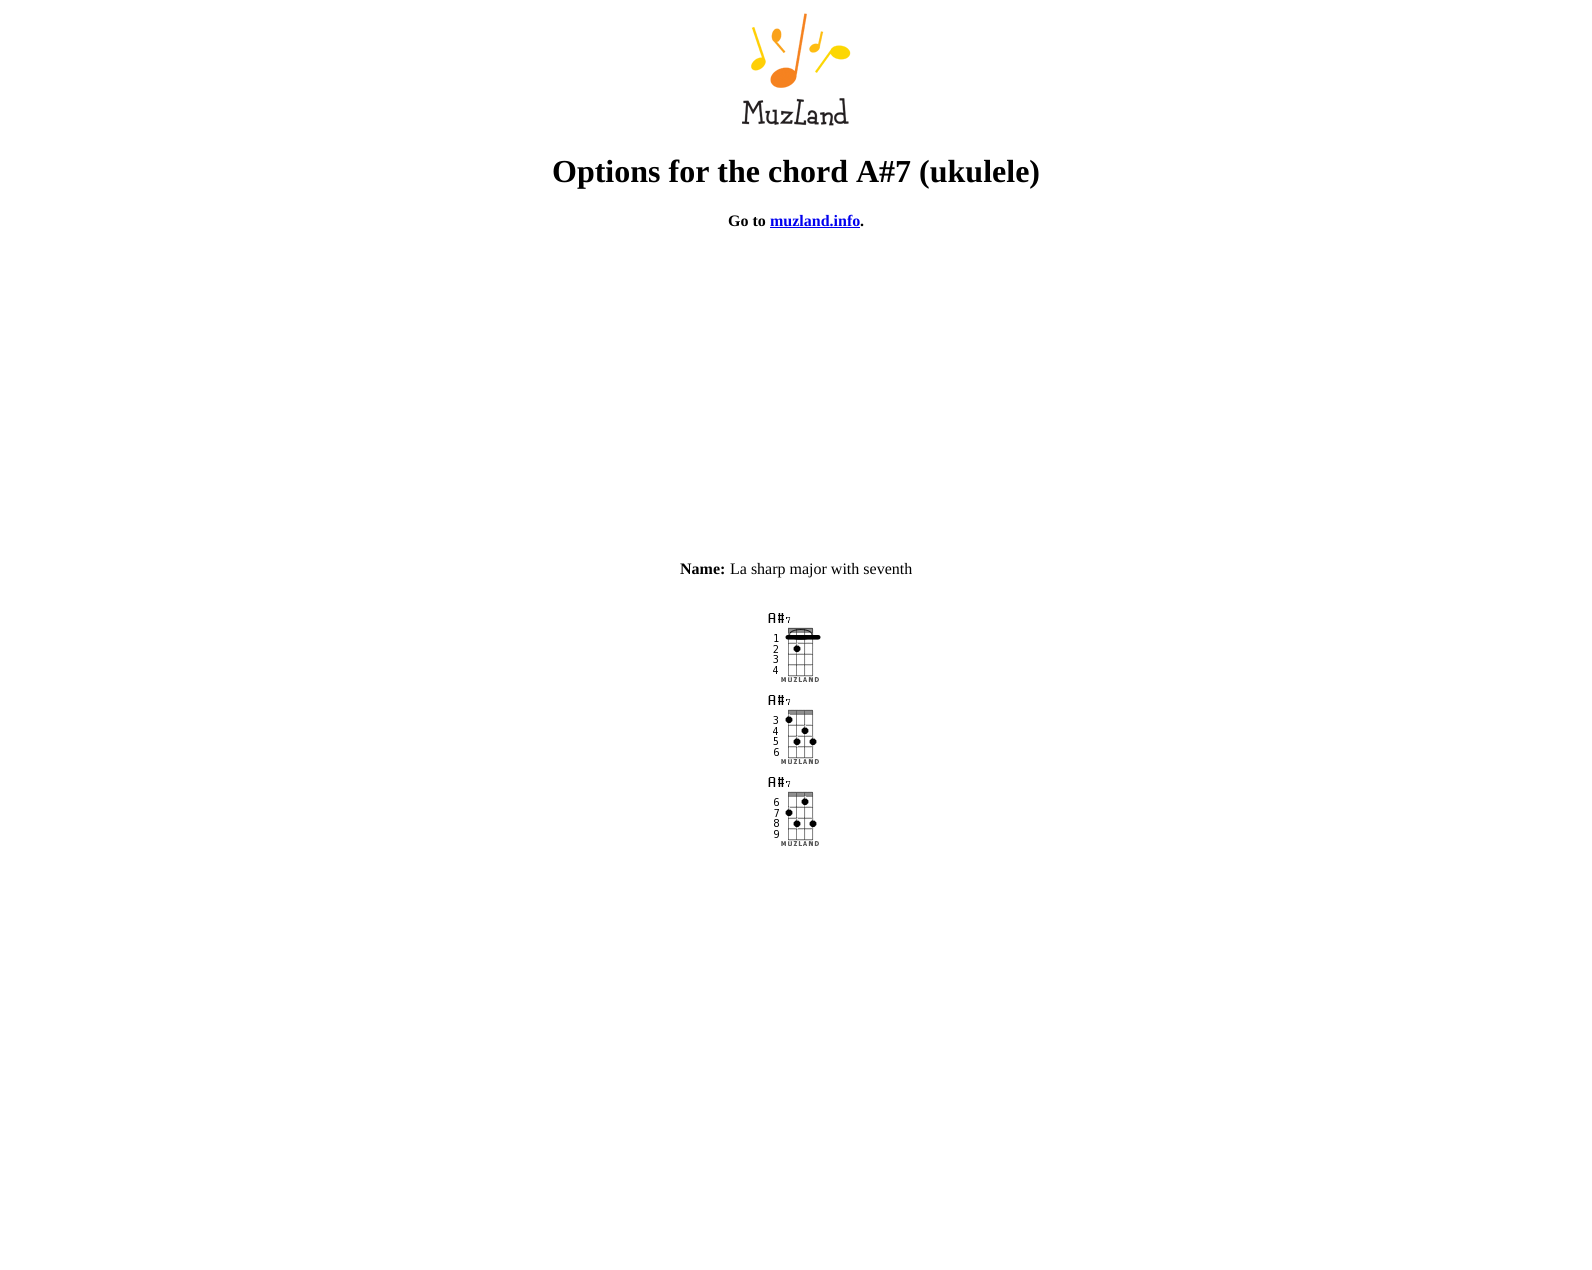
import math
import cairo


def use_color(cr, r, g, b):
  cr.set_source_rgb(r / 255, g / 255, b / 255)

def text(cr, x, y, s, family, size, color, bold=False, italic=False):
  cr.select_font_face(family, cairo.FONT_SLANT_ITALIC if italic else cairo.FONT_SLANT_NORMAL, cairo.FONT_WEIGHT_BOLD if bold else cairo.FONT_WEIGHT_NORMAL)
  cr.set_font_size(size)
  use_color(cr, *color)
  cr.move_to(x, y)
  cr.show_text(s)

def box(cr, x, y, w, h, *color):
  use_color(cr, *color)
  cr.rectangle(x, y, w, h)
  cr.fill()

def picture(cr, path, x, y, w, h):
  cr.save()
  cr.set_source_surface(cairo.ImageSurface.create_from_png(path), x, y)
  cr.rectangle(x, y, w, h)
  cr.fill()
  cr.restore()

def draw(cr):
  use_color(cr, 255, 255, 255)
  cr.paint()
  picture(cr, "img_01.png", 742, 13, 109, 113)
  box(cr, 770, 227, 90, 1, 0, 0, 238)
  picture(cr, "img_02.png", 768, 613, 53, 69)
  picture(cr, "img_03.png", 768, 695, 51, 69)
  picture(cr, "img_04.png", 768, 777, 51, 69)
  text(cr, 552, 182, "Options for the chord A#7 (ukulele)", "Liberation Serif", 32, (0, 0, 0), bold=True)
  text(cr, 728, 226, "Go to", "Liberation Serif", 16, (0, 0, 0), bold=True)
  text(cr, 770, 226, "muzland.info", "Liberation Serif", 16, (0, 0, 238), bold=True)
  text(cr, 860, 226, ".", "Liberation Serif", 16, (0, 0, 0), bold=True)
  text(cr, 680, 574, "Name:", "Liberation Serif", 16, (0, 0, 0), bold=True)
  text(cr, 730, 574, "La sharp major with seventh", "Liberation Serif", 16, (0, 0, 0))


surface = cairo.ImageSurface(cairo.FORMAT_RGB24, 1592, 1270)
cr = cairo.Context(surface)
options = cairo.FontOptions()
options.set_hint_metrics(cairo.HINT_METRICS_OFF)
options.set_hint_style(cairo.HINT_STYLE_NONE)
cr.set_font_options(options)
cr.set_miter_limit(4)
draw(cr)
surface.write_to_png("out.png")
